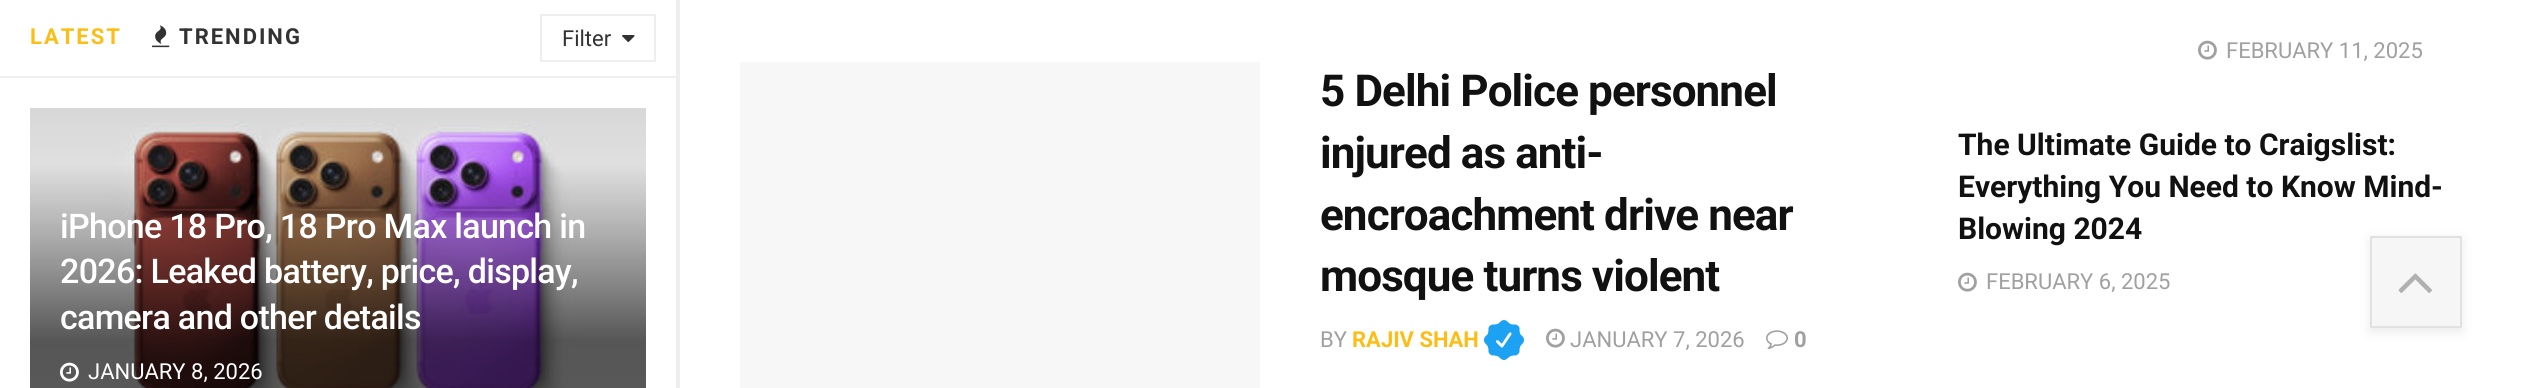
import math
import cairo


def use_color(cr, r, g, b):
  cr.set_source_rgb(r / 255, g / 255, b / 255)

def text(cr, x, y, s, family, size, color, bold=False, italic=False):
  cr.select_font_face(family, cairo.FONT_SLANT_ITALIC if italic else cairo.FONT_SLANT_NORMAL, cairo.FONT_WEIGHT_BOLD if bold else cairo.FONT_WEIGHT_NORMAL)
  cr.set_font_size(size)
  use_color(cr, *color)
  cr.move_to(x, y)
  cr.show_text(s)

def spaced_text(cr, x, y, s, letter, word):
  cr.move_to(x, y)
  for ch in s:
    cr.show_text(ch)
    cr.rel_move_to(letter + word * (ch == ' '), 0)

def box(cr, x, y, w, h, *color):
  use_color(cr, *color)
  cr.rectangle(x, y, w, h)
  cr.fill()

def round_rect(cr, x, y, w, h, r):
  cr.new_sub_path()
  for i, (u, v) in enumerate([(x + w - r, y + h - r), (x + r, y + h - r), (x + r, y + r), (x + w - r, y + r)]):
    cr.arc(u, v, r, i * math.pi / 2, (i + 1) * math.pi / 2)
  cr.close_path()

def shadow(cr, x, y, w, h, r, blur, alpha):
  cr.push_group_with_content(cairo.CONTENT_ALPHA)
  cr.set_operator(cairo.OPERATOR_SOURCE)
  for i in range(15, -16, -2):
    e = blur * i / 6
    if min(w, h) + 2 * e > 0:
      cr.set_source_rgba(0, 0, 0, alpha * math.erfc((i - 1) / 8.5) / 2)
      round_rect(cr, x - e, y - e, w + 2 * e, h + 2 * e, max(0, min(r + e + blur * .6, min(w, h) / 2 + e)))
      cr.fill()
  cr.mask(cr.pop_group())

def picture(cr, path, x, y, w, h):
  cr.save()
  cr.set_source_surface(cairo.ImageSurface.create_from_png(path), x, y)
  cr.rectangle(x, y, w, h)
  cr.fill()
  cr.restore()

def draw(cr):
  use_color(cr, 255, 255, 255)
  cr.paint()
  box(cr, 676, 0, 4, 388, 238, 238, 238)
  box(cr, 0, 76, 676, 2, 238, 238, 238)
  picture(cr, "img_01.png", 152, 25, 18, 23)
  cr.rectangle(541, 15, 114, 46)
  cr.stroke()
  picture(cr, "img_02.png", 622, 35, 13, 7)
  picture(cr, "img_03.png", 30, 108, 616, 280)
  picture(cr, "img_04.png", 60, 362, 19, 20)
  box(cr, 740, 62, 520, 326, 247, 247, 247)
  picture(cr, "img_05.png", 1484, 320, 40, 40)
  picture(cr, "img_06.png", 1546, 328, 19, 20)
  picture(cr, "img_07.png", 1766, 330, 22, 20)
  picture(cr, "img_06.png", 2198, 40, 19, 20)
  picture(cr, "img_06.png", 1958, 272, 19, 20)
  use_color(cr, 51, 51, 51)
  shadow(cr, 2370, 240, 92, 92, 0, 6, 0.1)
  use_color(cr, 246, 246, 246)
  cr.rectangle(2371, 237, 90, 90)
  cr.fill_preserve()
  use_color(cr, 225, 225, 225)
  cr.stroke()
  picture(cr, "img_08.png", 2398, 273, 34, 20)
  cr.select_font_face("Roboto", cairo.FONT_SLANT_NORMAL, cairo.FONT_WEIGHT_BOLD)
  cr.set_font_size(22)
  use_color(cr, 252, 190, 22)
  spaced_text(cr, 30, 44, "LATEST", 2, 0)
  use_color(cr, 50, 50, 50)
  spaced_text(cr, 179, 44, "TRENDING", 2, 0)
  text(cr, 562, 46, "Filter", "Roboto", 22, (50, 50, 50))
  cr.select_font_face("Roboto Medium")
  cr.set_font_size(34)
  use_color(cr, 255, 255, 255)
  spaced_text(cr, 60, 238, "iPhone 18 Pro, 18 Pro Max launch in", -0.7, 0)
  spaced_text(cr, 60, 283, "2026: Leaked battery, price, display,", -0.7, 0)
  spaced_text(cr, 60, 329, "camera and other details", -0.7, 0)
  text(cr, 88, 379, "JANUARY 8, 2026", "Roboto", 22, (255, 255, 255))
  cr.select_font_face("Roboto", cairo.FONT_SLANT_NORMAL, cairo.FONT_WEIGHT_BOLD)
  cr.set_font_size(44)
  use_color(cr, 17, 17, 17)
  spaced_text(cr, 1320, 106, "5 Delhi Police personnel", -0.9, 0)
  spaced_text(cr, 1320, 168, "injured as anti-", -0.9, 0)
  spaced_text(cr, 1320, 230, "encroachment drive near", -0.9, 0)
  spaced_text(cr, 1320, 291, "mosque turns violent", -0.9, 0)
  text(cr, 1320, 347, "BY", "Roboto", 22, (160, 160, 160))
  text(cr, 1352, 347, "RAJIV SHAH", "Roboto", 22, (252, 190, 22), bold=True)
  text(cr, 1570, 347, "JANUARY 7, 2026", "Roboto", 22, (160, 160, 160))
  text(cr, 1794, 347, "0", "Roboto", 22, (160, 160, 160), bold=True)
  text(cr, 2226, 58, "FEBRUARY 11, 2025", "Roboto", 22, (160, 160, 160))
  text(cr, 1958, 155, "The Ultimate Guide to Craigslist:", "Roboto", 30, (17, 17, 17), bold=True)
  text(cr, 1958, 197, "Everything You Need to Know Mind-", "Roboto", 30, (17, 17, 17), bold=True)
  text(cr, 1958, 239, "Blowing 2024", "Roboto", 30, (17, 17, 17), bold=True)
  text(cr, 1986, 289, "FEBRUARY 6, 2025", "Roboto", 22, (160, 160, 160))


surface = cairo.ImageSurface(cairo.FORMAT_RGB24, 2521, 388)
cr = cairo.Context(surface)
options = cairo.FontOptions()
options.set_hint_metrics(cairo.HINT_METRICS_OFF)
options.set_hint_style(cairo.HINT_STYLE_NONE)
cr.set_font_options(options)
cr.set_miter_limit(4)
draw(cr)
surface.write_to_png("out.png")
